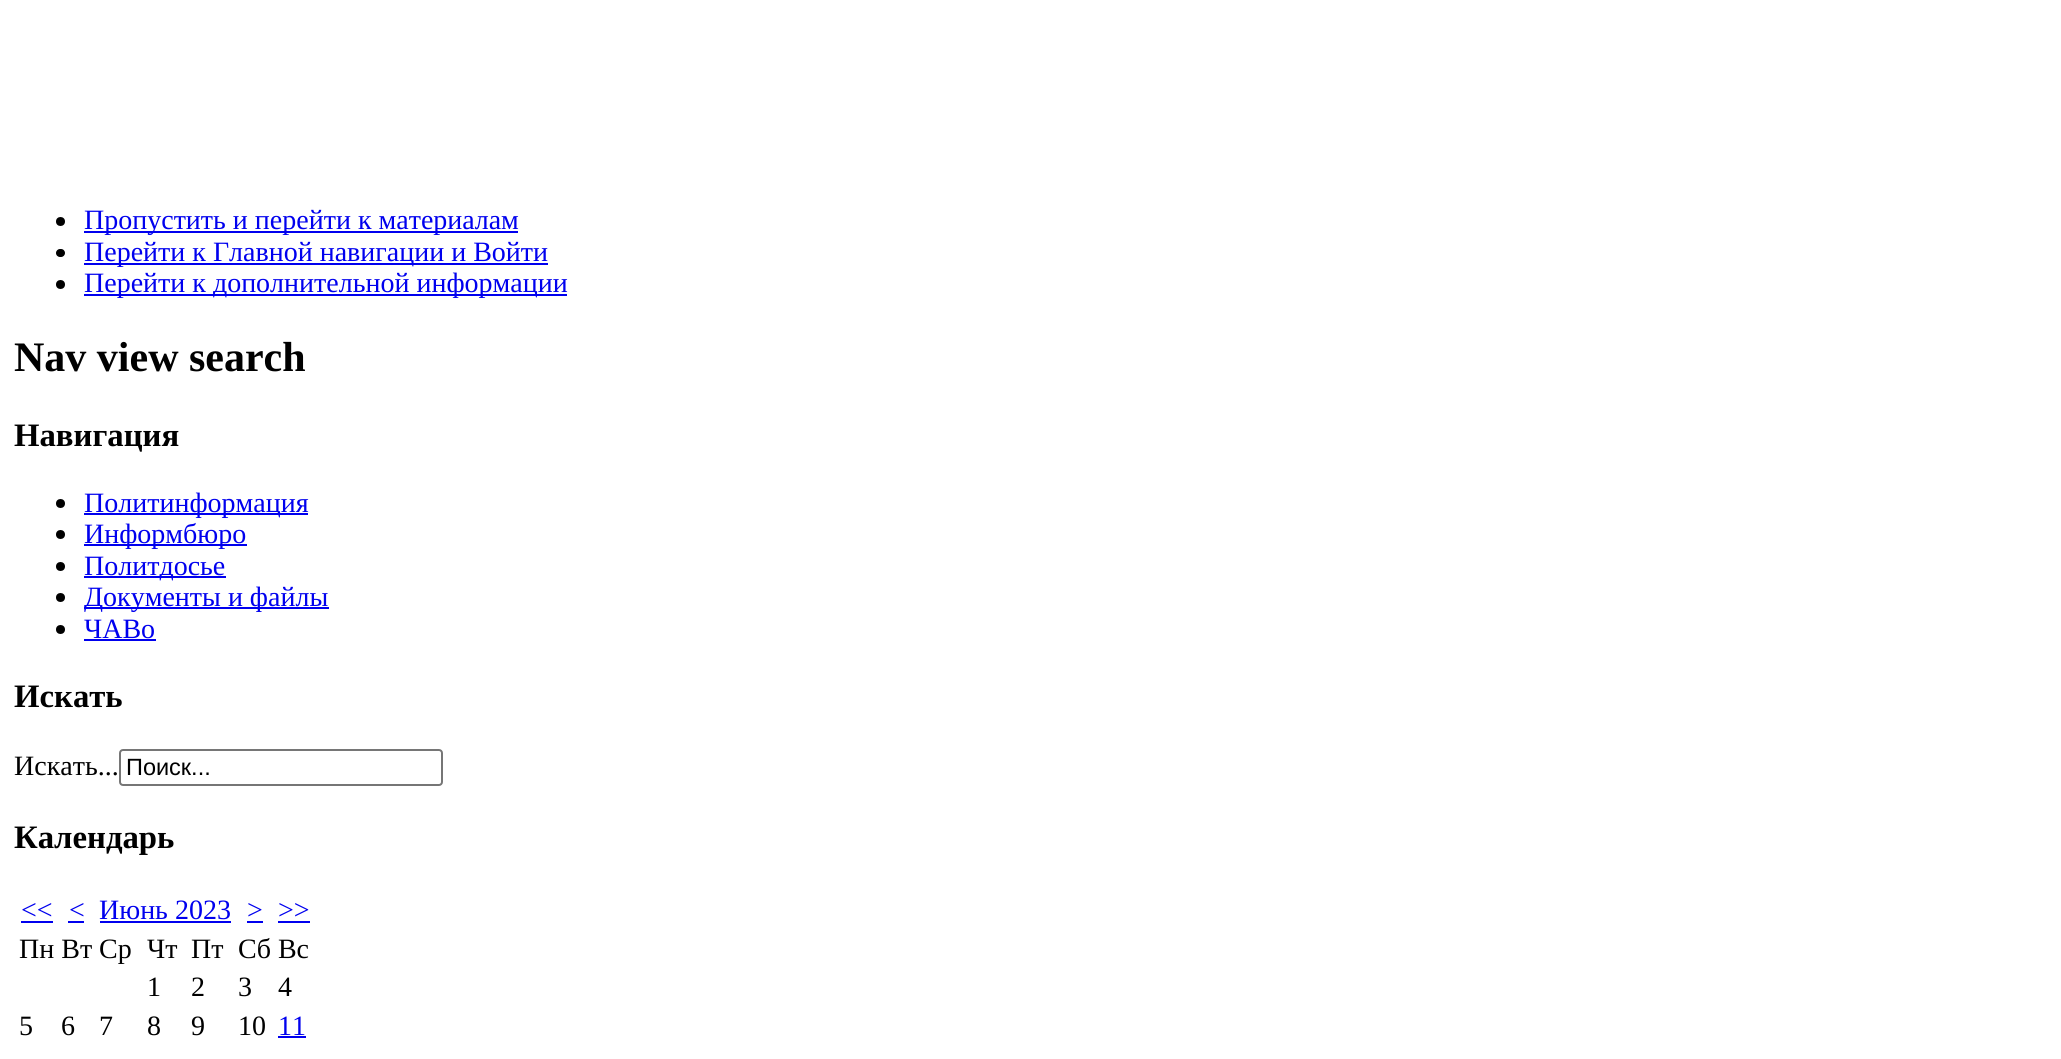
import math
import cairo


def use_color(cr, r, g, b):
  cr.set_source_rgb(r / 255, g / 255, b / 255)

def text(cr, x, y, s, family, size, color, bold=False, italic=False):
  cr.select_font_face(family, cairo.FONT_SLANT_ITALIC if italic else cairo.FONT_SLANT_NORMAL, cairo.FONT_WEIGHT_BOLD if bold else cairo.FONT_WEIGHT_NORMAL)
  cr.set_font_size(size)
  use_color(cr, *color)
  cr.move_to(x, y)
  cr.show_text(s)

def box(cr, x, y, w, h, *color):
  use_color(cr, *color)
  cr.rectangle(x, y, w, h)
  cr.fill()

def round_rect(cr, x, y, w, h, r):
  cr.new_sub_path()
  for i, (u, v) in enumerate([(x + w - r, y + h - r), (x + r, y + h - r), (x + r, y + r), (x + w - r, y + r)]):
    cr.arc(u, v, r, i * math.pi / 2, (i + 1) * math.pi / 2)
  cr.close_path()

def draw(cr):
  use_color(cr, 255, 255, 255)
  cr.paint()
  use_color(cr, 0, 0, 0)
  cr.arc(60.5, 221.5, 4.5, 0, 2 * math.pi)
  cr.fill()
  box(cr, 84, 231, 434, 2, 0, 0, 238)
  use_color(cr, 0, 0, 0)
  round_rect(cr, 56, 249, 9, 8, 4)
  cr.fill()
  box(cr, 84, 263, 464, 2, 0, 0, 238)
  use_color(cr, 0, 0, 0)
  cr.arc(60.5, 284.5, 4.5, 0, 2 * math.pi)
  cr.fill()
  box(cr, 84, 294, 483, 2, 0, 0, 238)
  use_color(cr, 0, 0, 0)
  cr.arc(60.5, 503.5, 4.5, 0, 2 * math.pi)
  cr.fill()
  box(cr, 84, 513, 224, 2, 0, 0, 238)
  use_color(cr, 0, 0, 0)
  cr.arc(60.5, 534.5, 4.5, 0, 2 * math.pi)
  cr.fill()
  box(cr, 84, 544, 163, 2, 0, 0, 238)
  use_color(cr, 0, 0, 0)
  cr.arc(60.5, 566.5, 4.5, 0, 2 * math.pi)
  cr.fill()
  box(cr, 84, 576, 142, 2, 0, 0, 238)
  use_color(cr, 0, 0, 0)
  cr.arc(60.5, 597.5, 4.5, 0, 2 * math.pi)
  cr.fill()
  box(cr, 84, 607, 245, 2, 0, 0, 238)
  use_color(cr, 0, 0, 0)
  cr.arc(60.5, 629.5, 4.5, 0, 2 * math.pi)
  cr.fill()
  box(cr, 84, 639, 72, 2, 0, 0, 238)
  round_rect(cr, 120, 750, 322, 35, 3)
  use_color(cr, 118, 118, 118)
  cr.stroke()
  box(cr, 21, 921, 32, 2, 0, 0, 238)
  box(cr, 68, 921, 16, 2, 0, 0, 238)
  box(cr, 100, 921, 131, 2, 0, 0, 238)
  box(cr, 247, 921, 16, 2, 0, 0, 238)
  box(cr, 278, 921, 32, 2, 0, 0, 238)
  box(cr, 278, 1036, 28, 2, 0, 0, 238)
  text(cr, 84, 229, "Пропустить и перейти к материалам", "Liberation Serif", 28, (0, 0, 238))
  text(cr, 84, 261, "Перейти к Главной навигации и Войти", "Liberation Serif", 28, (0, 0, 238))
  text(cr, 84, 292, "Перейти к дополнительной информации", "Liberation Serif", 28, (0, 0, 238))
  text(cr, 14, 371, "Nav view search", "Liberation Serif", 42, (0, 0, 0), bold=True)
  text(cr, 14, 446, "Навигация", "Liberation Serif", 32.75, (0, 0, 0), bold=True)
  text(cr, 84, 512, "Политинформация", "Liberation Serif", 28, (0, 0, 238))
  text(cr, 84, 543, "Информбюро", "Liberation Serif", 28, (0, 0, 238))
  text(cr, 84, 575, "Политдосье", "Liberation Serif", 28, (0, 0, 238))
  text(cr, 84, 606, "Документы и файлы", "Liberation Serif", 28, (0, 0, 238))
  text(cr, 84, 638, "ЧАВо", "Liberation Serif", 28, (0, 0, 238))
  text(cr, 14, 707, "Искать", "Liberation Serif", 32.75, (0, 0, 0), bold=True)
  text(cr, 14, 775, "Искать...", "Liberation Serif", 28, (0, 0, 0))
  text(cr, 126, 775, "Поиск...", "Liberation Sans", 23.5, (0, 0, 0))
  text(cr, 14, 848, "Календарь", "Liberation Serif", 32.75, (0, 0, 0), bold=True)
  text(cr, 21, 919, "<<", "Liberation Serif", 28, (0, 0, 238))
  text(cr, 69, 919, "<", "Liberation Serif", 28, (0, 0, 238))
  text(cr, 99, 919, "Июнь 2023", "Liberation Serif", 28, (0, 0, 238))
  text(cr, 247, 919, ">", "Liberation Serif", 28, (0, 0, 238))
  text(cr, 278, 919, ">>", "Liberation Serif", 28, (0, 0, 238))
  text(cr, 19, 958, "Пн Вт Ср", "Liberation Serif", 28, (0, 0, 0))
  text(cr, 147, 958, "Чт", "Liberation Serif", 28, (0, 0, 0))
  text(cr, 191, 958, "Пт", "Liberation Serif", 28, (0, 0, 0))
  text(cr, 238, 958, "Сб Вс", "Liberation Serif", 28, (0, 0, 0))
  text(cr, 147, 996, "1", "Liberation Serif", 28, (0, 0, 0))
  text(cr, 191, 996, "2", "Liberation Serif", 28, (0, 0, 0))
  text(cr, 238, 996, "3", "Liberation Serif", 28, (0, 0, 0))
  text(cr, 278, 996, "4", "Liberation Serif", 28, (0, 0, 0))
  text(cr, 19, 1035, "5", "Liberation Serif", 28, (0, 0, 0))
  text(cr, 61, 1035, "6", "Liberation Serif", 28, (0, 0, 0))
  text(cr, 99, 1035, "7", "Liberation Serif", 28, (0, 0, 0))
  text(cr, 147, 1035, "8", "Liberation Serif", 28, (0, 0, 0))
  text(cr, 191, 1035, "9", "Liberation Serif", 28, (0, 0, 0))
  text(cr, 238, 1035, "10", "Liberation Serif", 28, (0, 0, 0))
  text(cr, 278, 1035, "11", "Liberation Serif", 28, (0, 0, 238))


surface = cairo.ImageSurface(cairo.FORMAT_RGB24, 2061, 1059)
cr = cairo.Context(surface)
options = cairo.FontOptions()
options.set_hint_metrics(cairo.HINT_METRICS_OFF)
options.set_hint_style(cairo.HINT_STYLE_NONE)
cr.set_font_options(options)
cr.set_miter_limit(4)
draw(cr)
surface.write_to_png("out.png")
